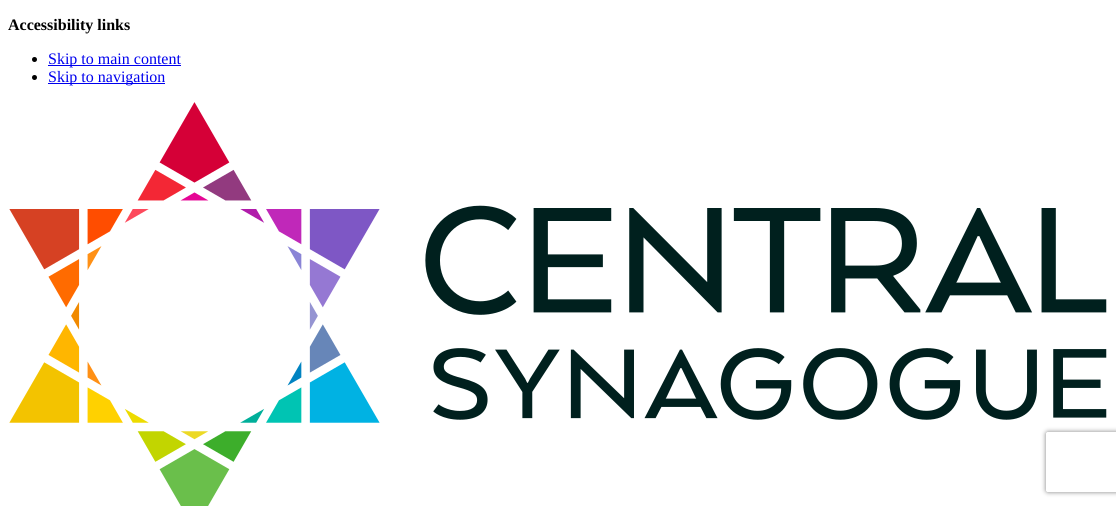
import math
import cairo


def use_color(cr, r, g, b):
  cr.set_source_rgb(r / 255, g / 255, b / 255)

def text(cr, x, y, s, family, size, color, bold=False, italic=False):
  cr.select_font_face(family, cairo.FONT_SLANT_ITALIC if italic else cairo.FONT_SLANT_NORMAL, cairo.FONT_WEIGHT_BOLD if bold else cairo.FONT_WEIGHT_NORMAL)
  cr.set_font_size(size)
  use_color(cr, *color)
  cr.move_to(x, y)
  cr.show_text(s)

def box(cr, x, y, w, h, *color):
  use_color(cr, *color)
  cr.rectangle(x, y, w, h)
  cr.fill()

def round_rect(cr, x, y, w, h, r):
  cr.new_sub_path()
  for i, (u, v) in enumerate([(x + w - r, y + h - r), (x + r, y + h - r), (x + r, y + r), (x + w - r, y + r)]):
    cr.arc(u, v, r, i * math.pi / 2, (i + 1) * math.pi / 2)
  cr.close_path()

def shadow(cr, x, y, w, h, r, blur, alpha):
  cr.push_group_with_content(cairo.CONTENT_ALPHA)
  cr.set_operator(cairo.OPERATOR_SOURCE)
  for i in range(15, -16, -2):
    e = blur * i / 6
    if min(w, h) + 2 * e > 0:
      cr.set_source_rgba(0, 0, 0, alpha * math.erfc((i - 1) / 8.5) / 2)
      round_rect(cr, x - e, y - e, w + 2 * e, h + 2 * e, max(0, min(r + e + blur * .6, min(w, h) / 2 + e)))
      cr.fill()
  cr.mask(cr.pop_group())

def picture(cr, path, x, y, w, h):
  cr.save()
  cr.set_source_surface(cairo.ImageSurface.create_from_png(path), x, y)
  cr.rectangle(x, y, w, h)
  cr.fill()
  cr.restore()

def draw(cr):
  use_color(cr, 255, 255, 255)
  cr.paint()
  use_color(cr, 0, 0, 0)
  cr.arc(34.5, 59.5, 2.5, 0, 2 * math.pi)
  cr.fill()
  box(cr, 48, 65, 133, 1, 0, 0, 238)
  use_color(cr, 0, 0, 0)
  cr.arc(34.5, 77.5, 2.5, 0, 2 * math.pi)
  cr.fill()
  box(cr, 48, 83, 117, 1, 0, 0, 238)
  picture(cr, "img_01.png", 9, 102, 1098, 404)
  cr.save()
  cr.set_fill_rule(cairo.FILL_RULE_EVEN_ODD)
  cr.new_path()
  cr.move_to(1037, 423)
  cr.line_to(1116, 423)
  cr.line_to(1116, 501)
  cr.line_to(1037, 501)
  cr.close_path()
  cr.move_to(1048, 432)
  cr.line_to(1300, 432)
  cr.curve_to(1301, 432, 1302, 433, 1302, 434)
  cr.line_to(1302, 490)
  cr.curve_to(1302, 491, 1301, 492, 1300, 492)
  cr.line_to(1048, 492)
  cr.curve_to(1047, 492, 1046, 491, 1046, 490)
  cr.line_to(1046, 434)
  cr.curve_to(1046, 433, 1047, 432, 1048, 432)
  cr.close_path()
  cr.clip()
  use_color(cr, 128, 128, 128)
  shadow(cr, 1046, 432, 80, 60, 2, 2.5, 1)
  cr.restore()
  text(cr, 8, 30, "Accessibility links", "Liberation Serif", 16, (0, 0, 0), bold=True)
  text(cr, 48, 64, "Skip to main content", "Liberation Serif", 16, (0, 0, 238))
  text(cr, 48, 82, "Skip to navigation", "Liberation Serif", 16, (0, 0, 238))


surface = cairo.ImageSurface(cairo.FORMAT_RGB24, 1116, 506)
cr = cairo.Context(surface)
options = cairo.FontOptions()
options.set_hint_metrics(cairo.HINT_METRICS_OFF)
options.set_hint_style(cairo.HINT_STYLE_NONE)
cr.set_font_options(options)
cr.set_miter_limit(4)
draw(cr)
surface.write_to_png("out.png")
